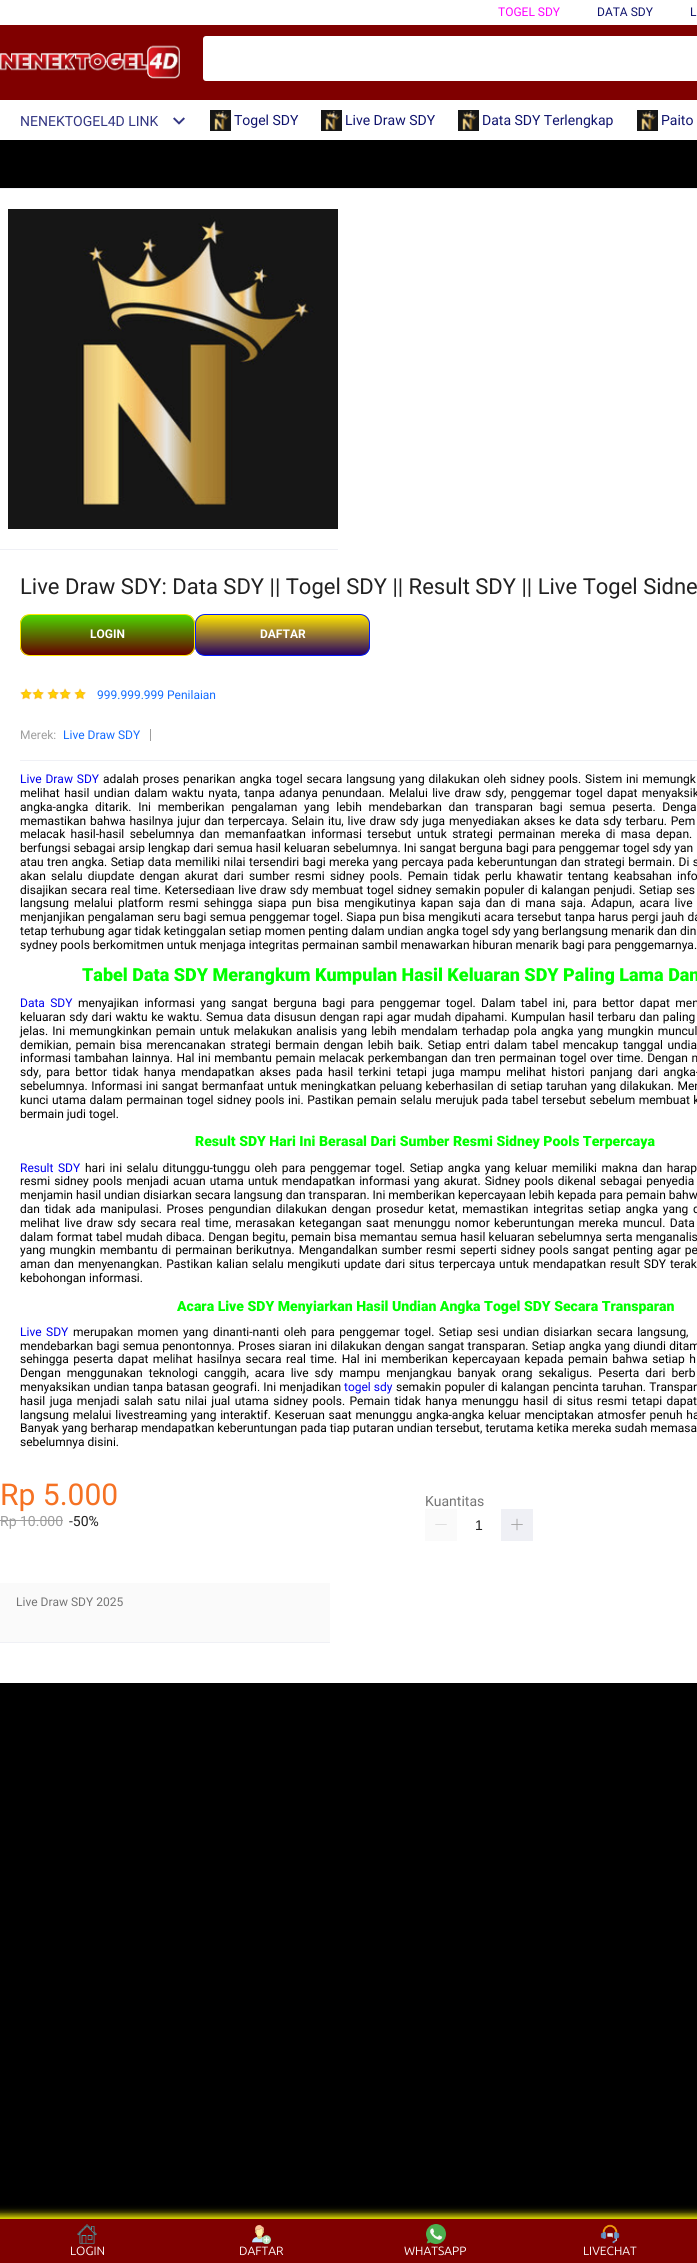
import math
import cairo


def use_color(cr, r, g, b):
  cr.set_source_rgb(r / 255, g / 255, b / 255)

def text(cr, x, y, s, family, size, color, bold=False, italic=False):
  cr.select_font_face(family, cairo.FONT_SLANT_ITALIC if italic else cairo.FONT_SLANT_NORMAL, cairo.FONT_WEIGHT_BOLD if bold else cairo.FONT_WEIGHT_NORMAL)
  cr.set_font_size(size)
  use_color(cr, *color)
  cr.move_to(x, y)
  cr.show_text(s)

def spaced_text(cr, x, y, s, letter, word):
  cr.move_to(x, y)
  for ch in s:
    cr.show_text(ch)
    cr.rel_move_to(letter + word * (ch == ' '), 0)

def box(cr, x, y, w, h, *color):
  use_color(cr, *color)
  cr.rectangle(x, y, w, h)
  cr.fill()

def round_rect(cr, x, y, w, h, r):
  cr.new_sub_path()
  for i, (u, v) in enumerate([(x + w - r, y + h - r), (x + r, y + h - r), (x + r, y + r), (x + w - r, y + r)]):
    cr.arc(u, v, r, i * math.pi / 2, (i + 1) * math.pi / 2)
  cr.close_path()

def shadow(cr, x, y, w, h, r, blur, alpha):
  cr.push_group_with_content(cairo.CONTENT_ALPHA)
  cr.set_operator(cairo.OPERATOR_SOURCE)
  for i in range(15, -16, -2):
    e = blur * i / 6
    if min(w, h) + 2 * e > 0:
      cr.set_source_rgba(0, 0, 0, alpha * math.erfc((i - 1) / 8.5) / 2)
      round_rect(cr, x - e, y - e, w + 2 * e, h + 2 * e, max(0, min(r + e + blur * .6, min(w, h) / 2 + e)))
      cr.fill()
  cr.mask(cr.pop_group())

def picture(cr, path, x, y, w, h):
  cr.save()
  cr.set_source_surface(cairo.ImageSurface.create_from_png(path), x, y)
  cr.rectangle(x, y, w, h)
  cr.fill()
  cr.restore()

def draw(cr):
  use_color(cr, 0, 0, 0)
  cr.paint()
  box(cr, 0, 0, 697, 140, 255, 255, 255)
  box(cr, 0, 25, 697, 75, 128, 0, 0)
  picture(cr, "img_01.png", 0, 45, 180, 34)
  use_color(cr, 255, 255, 255)
  round_rect(cr, 203, 36, 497, 45, 3)
  cr.fill()
  picture(cr, "img_02.png", 173, 117, 12, 8)
  picture(cr, "img_03.png", 210, 110, 21, 21)
  picture(cr, "img_03.png", 321, 110, 21, 21)
  picture(cr, "img_04.png", 458, 110, 21, 21)
  picture(cr, "img_03.png", 637, 110, 21, 21)
  box(cr, 0, 188, 697, 1, 239, 240, 245)
  box(cr, 0, 189, 697, 1494, 255, 255, 255)
  box(cr, 0, 549, 338, 1, 239, 240, 245)
  picture(cr, "img_05.png", 8, 209, 330, 320)
  cr.save()
  round_rect(cr, 20, 614, 175, 42, 10)
  cr.clip()
  gradient = cairo.LinearGradient(108, 615, 108, 655)
  gradient.add_color_stop_rgba(0, 0.306, 0.839, 0, 1)
  gradient.add_color_stop_rgba(1, 0.4, 0, 0, 1)
  cr.set_source(gradient)
  cr.rectangle(20, 615, 175, 40)
  cr.fill()
  cr.restore()
  round_rect(cr, 20.5, 614.5, 174, 41, 9.5)
  use_color(cr, 255, 230, 0)
  cr.set_line_width(1)
  cr.stroke()
  cr.save()
  round_rect(cr, 195, 614, 175, 42, 10)
  cr.clip()
  gradient = cairo.LinearGradient(283, 615, 283, 655)
  gradient.add_color_stop_rgba(0, 1, 0.902, 0, 1)
  gradient.add_color_stop_rgba(1, 0.149, 0, 0.384, 1)
  cr.set_source(gradient)
  cr.rectangle(195, 615, 175, 40)
  cr.fill()
  cr.restore()
  round_rect(cr, 195.5, 614.5, 174, 41, 9.5)
  use_color(cr, 0, 26, 255)
  cr.stroke()
  picture(cr, "img_06.png", 20, 688, 12, 12)
  picture(cr, "img_06.png", 32, 688, 12, 12)
  picture(cr, "img_06.png", 47, 688, 12, 12)
  picture(cr, "img_06.png", 59, 688, 12, 12)
  picture(cr, "img_06.png", 74, 688, 12, 12)
  box(cr, 20, 760, 677, 1, 239, 240, 245)
  box(cr, 150, 729, 1, 12, 158, 158, 158)
  box(cr, 0, 1520, 63, 1, 158, 158, 158)
  box(cr, 425, 1509, 32, 32, 250, 250, 250)
  picture(cr, "img_07.png", 435, 1524, 12, 1)
  box(cr, 501, 1509, 32, 32, 239, 240, 245)
  picture(cr, "img_08.png", 511, 1518, 12, 13)
  box(cr, 0, 1583, 330, 59, 250, 250, 250)
  box(cr, 0, 1642, 330, 1, 239, 240, 245)
  use_color(cr, 255, 251, 0)
  shadow(cr, -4, 2215, 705, 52, 0, 4, 1)
  box(cr, 0, 2219, 697, 44, 128, 0, 0)
  picture(cr, "img_09.png", 77, 2224, 20, 20)
  picture(cr, "img_10.png", 252, 2224, 19, 20)
  picture(cr, "img_11.png", 426, 2224, 20, 20)
  picture(cr, "img_12.png", 600, 2224, 20, 20)
  text(cr, 498, 16, "TOGEL SDY", "Roboto", 12, (255, 0, 255))
  text(cr, 597, 16, "DATA SDY", "Roboto", 12, (15, 19, 109))
  text(cr, 690, 16, "L", "Roboto", 12, (15, 19, 109))
  text(cr, 20, 126, "NENEKTOGEL4D LINK", "Roboto", 14, (51, 54, 131))
  text(cr, 234, 125, "Togel SDY", "Roboto", 14, (15, 19, 109))
  text(cr, 345, 125, "Live Draw SDY", "Roboto", 14, (15, 19, 109))
  text(cr, 482, 125, "Data SDY Terlengkap", "Roboto", 14, (15, 19, 109))
  text(cr, 661, 125, "Paito", "Roboto", 14, (15, 19, 109))
  text(cr, 20, 594, "Live Draw SDY: Data SDY || Togel SDY || Result SDY || Live Togel Sidne", "Roboto", 22, (33, 33, 33))
  text(cr, 90, 638, "LOGIN", "Roboto", 12, (255, 255, 255), bold=True)
  text(cr, 260, 638, "DAFTAR", "Roboto", 12, (255, 255, 255), bold=True)
  text(cr, 97, 699, "999.999.999 Penilaian", "Roboto", 12, (19, 108, 255))
  text(cr, 20, 739, "Merek:", "Roboto", 12, (158, 158, 158))
  text(cr, 63, 739, "Live Draw SDY", "Roboto", 12, (19, 108, 255))
  use_color(cr, 0, 0, 238)
  spaced_text(cr, 20, 783, "Live Draw SDY", 0, 0.9)
  use_color(cr, 0, 0, 0)
  spaced_text(cr, 103, 783, "adalah proses penarikan angka togel secara langsung yang dilakukan oleh sidney pools. Sistem ini memungk", 0, 0.9)
  spaced_text(cr, 20, 797, "melihat hasil undian dalam waktu nyata, tanpa adanya penundaan. Melalui live draw sdy, penggemar togel dapat menyaksik", 0, 1.4)
  spaced_text(cr, 20, 811, "angka-angka ditarik. Ini memberikan pengalaman yang lebih mendebarkan dan transparan bagi semua peserta. Denga", 0, 3.75)
  spaced_text(cr, 20, 825, "memastikan bahwa hasilnya jujur dan terpercaya. Selain itu, live draw sdy juga menyediakan akses ke data sdy terbaru. Pem", 0, 0.9)
  spaced_text(cr, 20, 838, "melacak hasil-hasil sebelumnya dan memanfaatkan informasi tersebut untuk strategi permainan mereka di masa depan.", 0, 2.4)
  spaced_text(cr, 20, 852, "berfungsi sebagai arsip lengkap dari semua hasil keluaran sebelumnya. Ini sangat berguna bagi para penggemar togel sdy yan", 0, 0.1)
  spaced_text(cr, 20, 866, "atau tren angka. Setiap data memiliki nilai tersendiri bagi mereka yang percaya pada keberuntungan dan strategi bermain. Di s", 0, 0.5)
  spaced_text(cr, 20, 880, "akan selalu diupdate dengan akurat dari sumber resmi sidney pools. Pemain tidak perlu khawatir tentang keabsahan info", 0, 2.25)
  spaced_text(cr, 20, 894, "disajikan secara real time. Ketersediaan live draw sdy membuat togel sidney semakin populer di kalangan penjudi. Setiap ses", 0, 0.6)
  spaced_text(cr, 20, 907, "langsung melalui platform resmi sehingga siapa pun bisa mengikutinya kapan saja dan di mana saja. Adapun, acara live", 0, 2.1)
  spaced_text(cr, 20, 921, "menjanjikan pengalaman seru bagi semua penggemar togel. Siapa pun bisa mengikuti acara tersebut tanpa harus pergi jauh da", 0, 0.25)
  text(cr, 20, 935, "tetap terhubung agar tidak ketinggalan setiap momen penting dalam undian angka togel sdy yang berlangsung menarik dan din", "Roboto", 12, (0, 0, 0))
  text(cr, 20, 949, "sydney pools berkomitmen untuk menjaga integritas permainan sambil menawarkan hiburan menarik bagi para penggemarnya.", "Roboto", 12, (0, 0, 0))
  text(cr, 82, 981, "Tabel Data SDY Merangkum Kumpulan Hasil Keluaran SDY Paling Lama Dan", "Roboto Black", 18, (0, 255, 0))
  cr.select_font_face("Roboto")
  cr.set_font_size(12)
  use_color(cr, 0, 0, 238)
  spaced_text(cr, 20, 1007, "Data SDY", 0, 2.4)
  use_color(cr, 0, 0, 0)
  spaced_text(cr, 78, 1007, "menyajikan informasi yang sangat berguna bagi para penggemar togel. Dalam tabel ini, para bettor dapat men", 0, 2.4)
  spaced_text(cr, 20, 1021, "keluaran sdy dari waktu ke waktu. Semua data disusun dengan rapi agar mudah dipahami. Kumpulan hasil terbaru dan paling", 0, 0.6)
  spaced_text(cr, 20, 1035, "jelas. Ini memungkinkan pemain untuk melakukan analisis yang lebih mendalam terhadap pola angka yang mungkin muncul", 0, 1.25)
  spaced_text(cr, 20, 1049, "demikian, pemain bisa merencanakan strategi bermain dengan lebih baik. Setiap entri dalam tabel mencakup tanggal undia", 0, 1.5)
  spaced_text(cr, 20, 1062, "informasi tambahan lainnya. Hal ini membantu pemain melacak perkembangan dan tren permainan togel over time. Dengan m", 0, 0.6)
  spaced_text(cr, 20, 1076, "sdy, para bettor tidak hanya mendapatkan akses pada hasil terkini tetapi juga mampu melihat histori panjang dari angka-", 0, 2.25)
  spaced_text(cr, 20, 1090, "sebelumnya. Informasi ini sangat bermanfaat untuk meningkatkan peluang keberhasilan di setiap taruhan yang dilakukan. Men", 0, 0.5)
  spaced_text(cr, 20, 1104, "kunci utama dalam permainan togel sidney pools ini. Pastikan pemain selalu merujuk pada tabel tersebut sebelum membuat k", 0, 0.5)
  text(cr, 20, 1118, "bermain judi togel.", "Roboto", 12, (0, 0, 0))
  text(cr, 195, 1146, "Result SDY Hari Ini Berasal Dari Sumber Resmi Sidney Pools Terpercaya", "Roboto Black", 14.05, (0, 255, 0))
  cr.select_font_face("Roboto")
  cr.set_font_size(12)
  use_color(cr, 0, 0, 238)
  spaced_text(cr, 20, 1172, "Result SDY", 0, 1.5)
  use_color(cr, 0, 0, 0)
  spaced_text(cr, 85, 1172, "hari ini selalu ditunggu-tunggu oleh para penggemar togel. Setiap angka yang keluar memiliki makna dan harap", 0, 1.5)
  spaced_text(cr, 20, 1185, "resmi sidney pools menjadi acuan utama untuk mendapatkan informasi yang akurat. Sidney pools dikenal sebagai penyedia", 0, 1.1)
  text(cr, 20, 1199, "menjamin hasil undian disiarkan secara langsung dan transparan. Ini memberikan kepercayaan lebih kepada para pemain bahw", "Roboto", 12, (0, 0, 0))
  spaced_text(cr, 20, 1213, "dan tidak ada manipulasi. Proses pengundian dilakukan dengan prosedur ketat, memastikan integritas setiap angka yang d", 0, 1.75)
  spaced_text(cr, 20, 1227, "melihat live draw sdy secara real time, merasakan ketegangan saat menunggu nomor keberuntungan mereka muncul. Data", 0, 1.4)
  spaced_text(cr, 20, 1241, "dalam format tabel mudah dibaca. Dengan begitu, pemain bisa memantau semua hasil keluaran sebelumnya serta menganalis", 0, 0.3)
  spaced_text(cr, 20, 1254, "yang mungkin membantu di permainan berikutnya. Mengandalkan sumber resmi seperti sidney pools sangat penting agar pe", 0, 1)
  spaced_text(cr, 20, 1268, "aman dan menyenangkan. Pastikan kalian selalu mengikuti update dari situs terpercaya untuk mendapatkan result SDY terak", 0, 0.9)
  text(cr, 20, 1282, "kebohongan informasi.", "Roboto", 12, (0, 0, 0))
  text(cr, 177, 1311, "Acara Live SDY Menyiarkan Hasil Undian Angka Togel SDY Secara Transparan", "Roboto Black", 14.05, (0, 255, 0))
  cr.select_font_face("Roboto")
  cr.set_font_size(12)
  use_color(cr, 0, 0, 238)
  spaced_text(cr, 20, 1336, "Live SDY", 0, 1.5)
  use_color(cr, 0, 0, 0)
  spaced_text(cr, 73, 1336, "merupakan momen yang dinanti-nanti oleh para penggemar togel. Setiap sesi undian disiarkan secara langsung,", 0, 1.5)
  spaced_text(cr, 20, 1350, "mendebarkan bagi semua penontonnya. Proses siaran ini dilakukan dengan sangat transparan. Setiap angka yang diundi ditam", 0, 0.3)
  spaced_text(cr, 20, 1363, "sehingga peserta dapat melihat hasilnya secara real time. Hal ini memberikan kepercayaan kepada pemain bahwa setiap h", 0, 1.5)
  spaced_text(cr, 20, 1377, "Dengan menggunakan teknologi canggih, acara live sdy mampu menjangkau banyak orang sekaligus. Peserta dari berb", 0, 3)
  spaced_text(cr, 20, 1391, "menyaksikan undian tanpa batasan geografi. Ini menjadikan", 0, 0.25)
  text(cr, 344, 1391, "togel sdy", "Roboto", 12, (0, 0, 238))
  use_color(cr, 0, 0, 0)
  spaced_text(cr, 396, 1391, "semakin populer di kalangan pencinta taruhan. Transpar", 0, 0.25)
  spaced_text(cr, 20, 1405, "hasil juga menjadi salah satu nilai jual utama sidney pools. Pemain tidak hanya menunggu hasil di situs resmi tetapi dapat", 0, 1.5)
  spaced_text(cr, 20, 1419, "langsung melalui livestreaming yang interaktif. Keseruan saat menunggu angka-angka keluar menciptakan atmosfer penuh ha", 0, 0.75)
  text(cr, 20, 1432, "Banyak yang berharap mendapatkan keberuntungan pada tiap putaran undian tersebut, terutama ketika mereka sudah memasa", "Roboto", 12, (0, 0, 0))
  text(cr, 20, 1446, "sebelumnya disini.", "Roboto", 12, (0, 0, 0))
  text(cr, 0, 1505, "Rp 5.000", "Roboto", 30, (245, 114, 36))
  text(cr, 0, 1526, "Rp 10.000", "Roboto", 14, (158, 158, 158))
  text(cr, 69, 1526, "-50%", "Roboto", 14, (33, 33, 33))
  text(cr, 425, 1506, "Kuantitas", "Roboto", 14, (117, 117, 117))
  text(cr, 475, 1530, "1", "Liberation Sans", 14, (33, 33, 33))
  text(cr, 16, 1606, "Live Draw SDY 2025", "Roboto", 12, (117, 117, 117))
  text(cr, 70, 2255, "LOGIN", "Ubuntu", 12, (255, 255, 255))
  text(cr, 239, 2255, "DAFTAR", "Ubuntu", 12, (255, 255, 255))
  text(cr, 404, 2255, "WHATSAPP", "Ubuntu", 12, (255, 255, 255))
  text(cr, 583, 2255, "LIVECHAT", "Ubuntu", 12, (255, 255, 255))


surface = cairo.ImageSurface(cairo.FORMAT_RGB24, 697, 2263)
cr = cairo.Context(surface)
options = cairo.FontOptions()
options.set_hint_metrics(cairo.HINT_METRICS_OFF)
options.set_hint_style(cairo.HINT_STYLE_NONE)
cr.set_font_options(options)
cr.set_miter_limit(4)
draw(cr)
surface.write_to_png("out.png")
